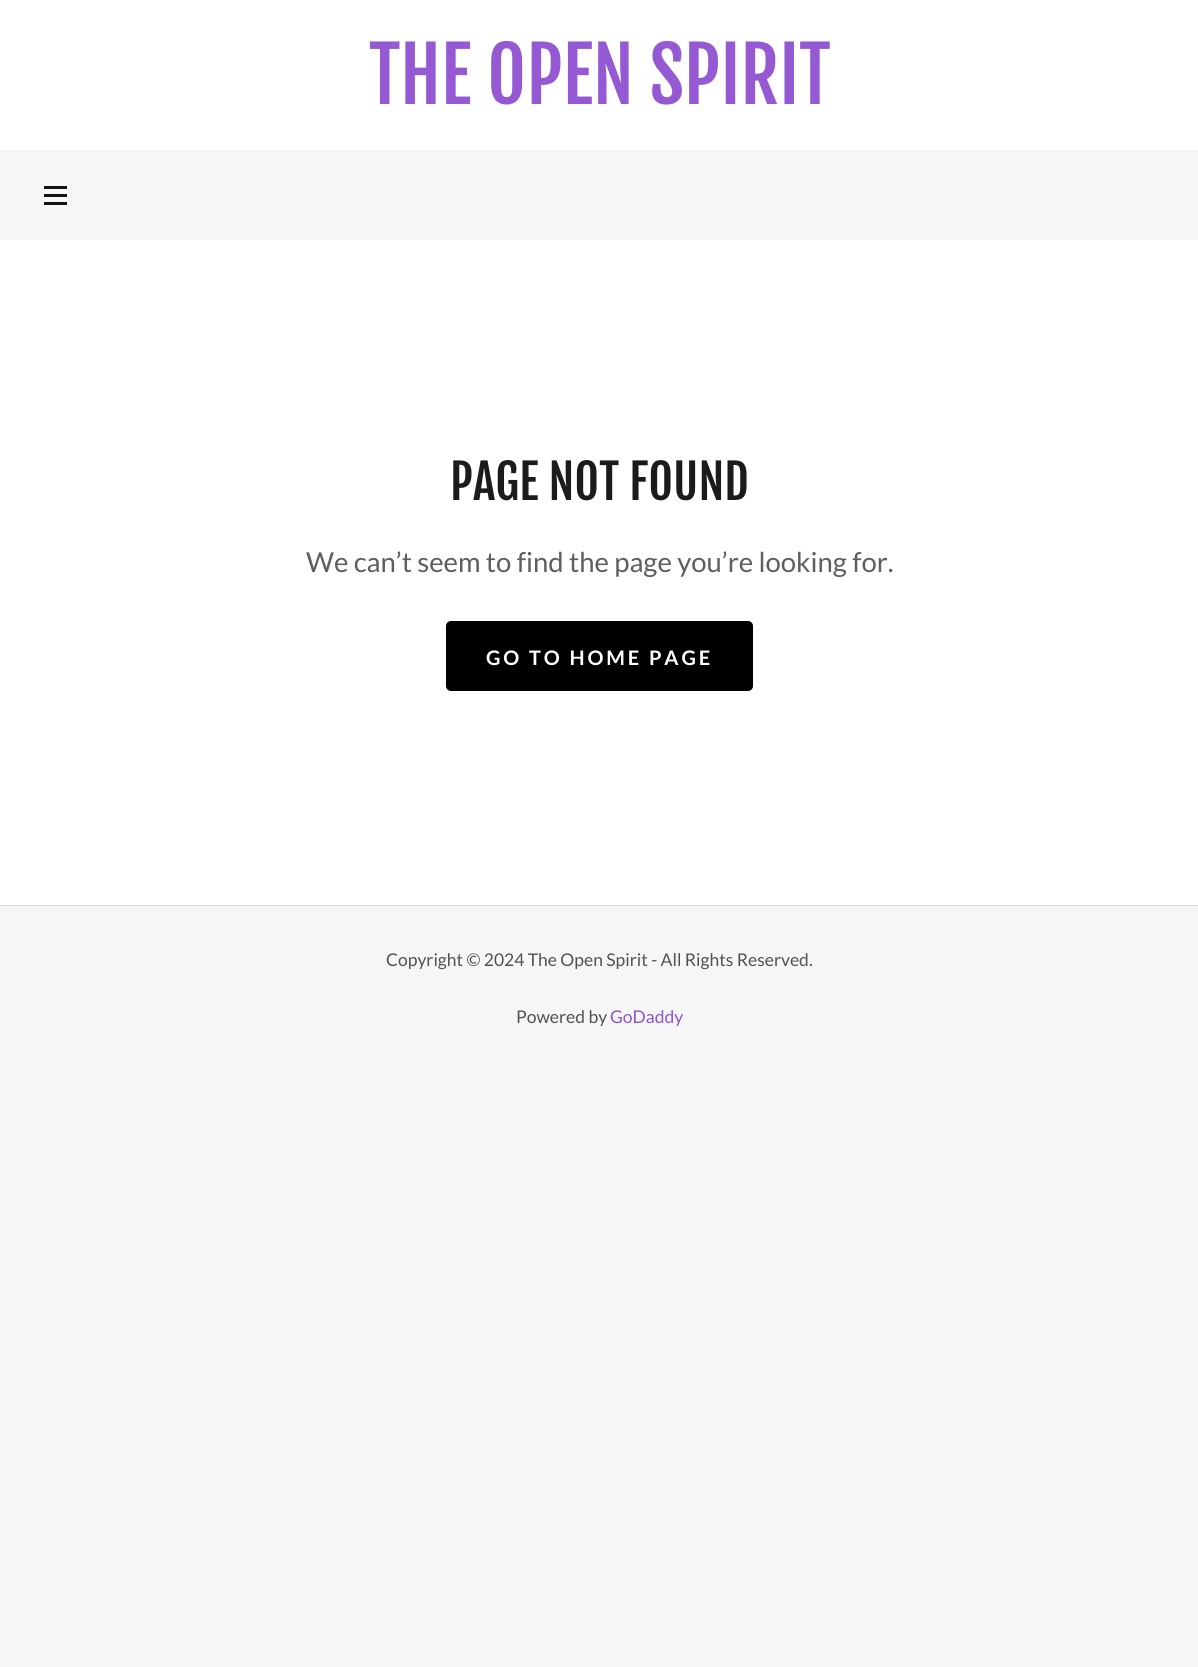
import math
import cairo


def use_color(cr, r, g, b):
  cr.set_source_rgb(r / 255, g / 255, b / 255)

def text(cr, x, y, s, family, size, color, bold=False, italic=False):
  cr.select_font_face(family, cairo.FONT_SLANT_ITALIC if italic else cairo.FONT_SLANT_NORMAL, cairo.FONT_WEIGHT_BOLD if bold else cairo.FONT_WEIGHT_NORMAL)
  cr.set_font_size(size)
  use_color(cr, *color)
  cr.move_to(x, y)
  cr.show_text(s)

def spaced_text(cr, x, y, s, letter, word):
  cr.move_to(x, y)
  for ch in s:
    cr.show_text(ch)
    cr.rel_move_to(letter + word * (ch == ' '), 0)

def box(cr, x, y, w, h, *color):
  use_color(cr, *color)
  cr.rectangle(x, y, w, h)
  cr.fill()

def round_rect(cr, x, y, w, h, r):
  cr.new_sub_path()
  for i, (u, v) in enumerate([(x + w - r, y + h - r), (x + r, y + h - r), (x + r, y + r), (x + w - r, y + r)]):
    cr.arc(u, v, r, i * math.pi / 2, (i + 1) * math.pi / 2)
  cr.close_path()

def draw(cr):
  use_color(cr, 246, 246, 246)
  cr.paint()
  box(cr, 0, 0, 1198, 150, 255, 255, 255)
  box(cr, 44, 186, 23, 3, 21, 21, 21)
  box(cr, 44, 194, 23, 3, 21, 21, 21)
  box(cr, 44, 202, 23, 3, 21, 21, 21)
  box(cr, 0, 240, 1198, 665, 255, 255, 255)
  use_color(cr, 0, 0, 0)
  round_rect(cr, 446, 621, 307, 70, 5)
  cr.fill()
  box(cr, 0, 905, 1198, 1, 218, 218, 218)
  text(cr, 369, 104, "THE OPEN SPIRIT", "Fjalla One", 75, (149, 89, 212))
  text(cr, 450, 500, "PAGE NOT FOUND", "Fjalla One", 47.5, (27, 27, 27))
  text(cr, 306, 572, "We can’t seem to find the page you’re looking for.", "Lato", 27.5, (94, 94, 94))
  cr.select_font_face("Lato", cairo.FONT_SLANT_NORMAL, cairo.FONT_WEIGHT_BOLD)
  cr.set_font_size(20)
  use_color(cr, 255, 255, 255)
  spaced_text(cr, 486, 665, "GO TO HOME PAGE", 2.9, 0)
  text(cr, 386, 966, "Copyright © 2024 The Open Spirit - All Rights Reserved.", "Lato", 17.5, (82, 82, 82))
  text(cr, 516, 1023, "Powered by", "Lato", 17.5, (82, 82, 82))
  text(cr, 610, 1023, "GoDaddy", "Lato", 17.5, (143, 83, 207))


surface = cairo.ImageSurface(cairo.FORMAT_RGB24, 1198, 1667)
cr = cairo.Context(surface)
options = cairo.FontOptions()
options.set_hint_metrics(cairo.HINT_METRICS_OFF)
options.set_hint_style(cairo.HINT_STYLE_NONE)
cr.set_font_options(options)
cr.set_miter_limit(4)
draw(cr)
surface.write_to_png("out.png")
